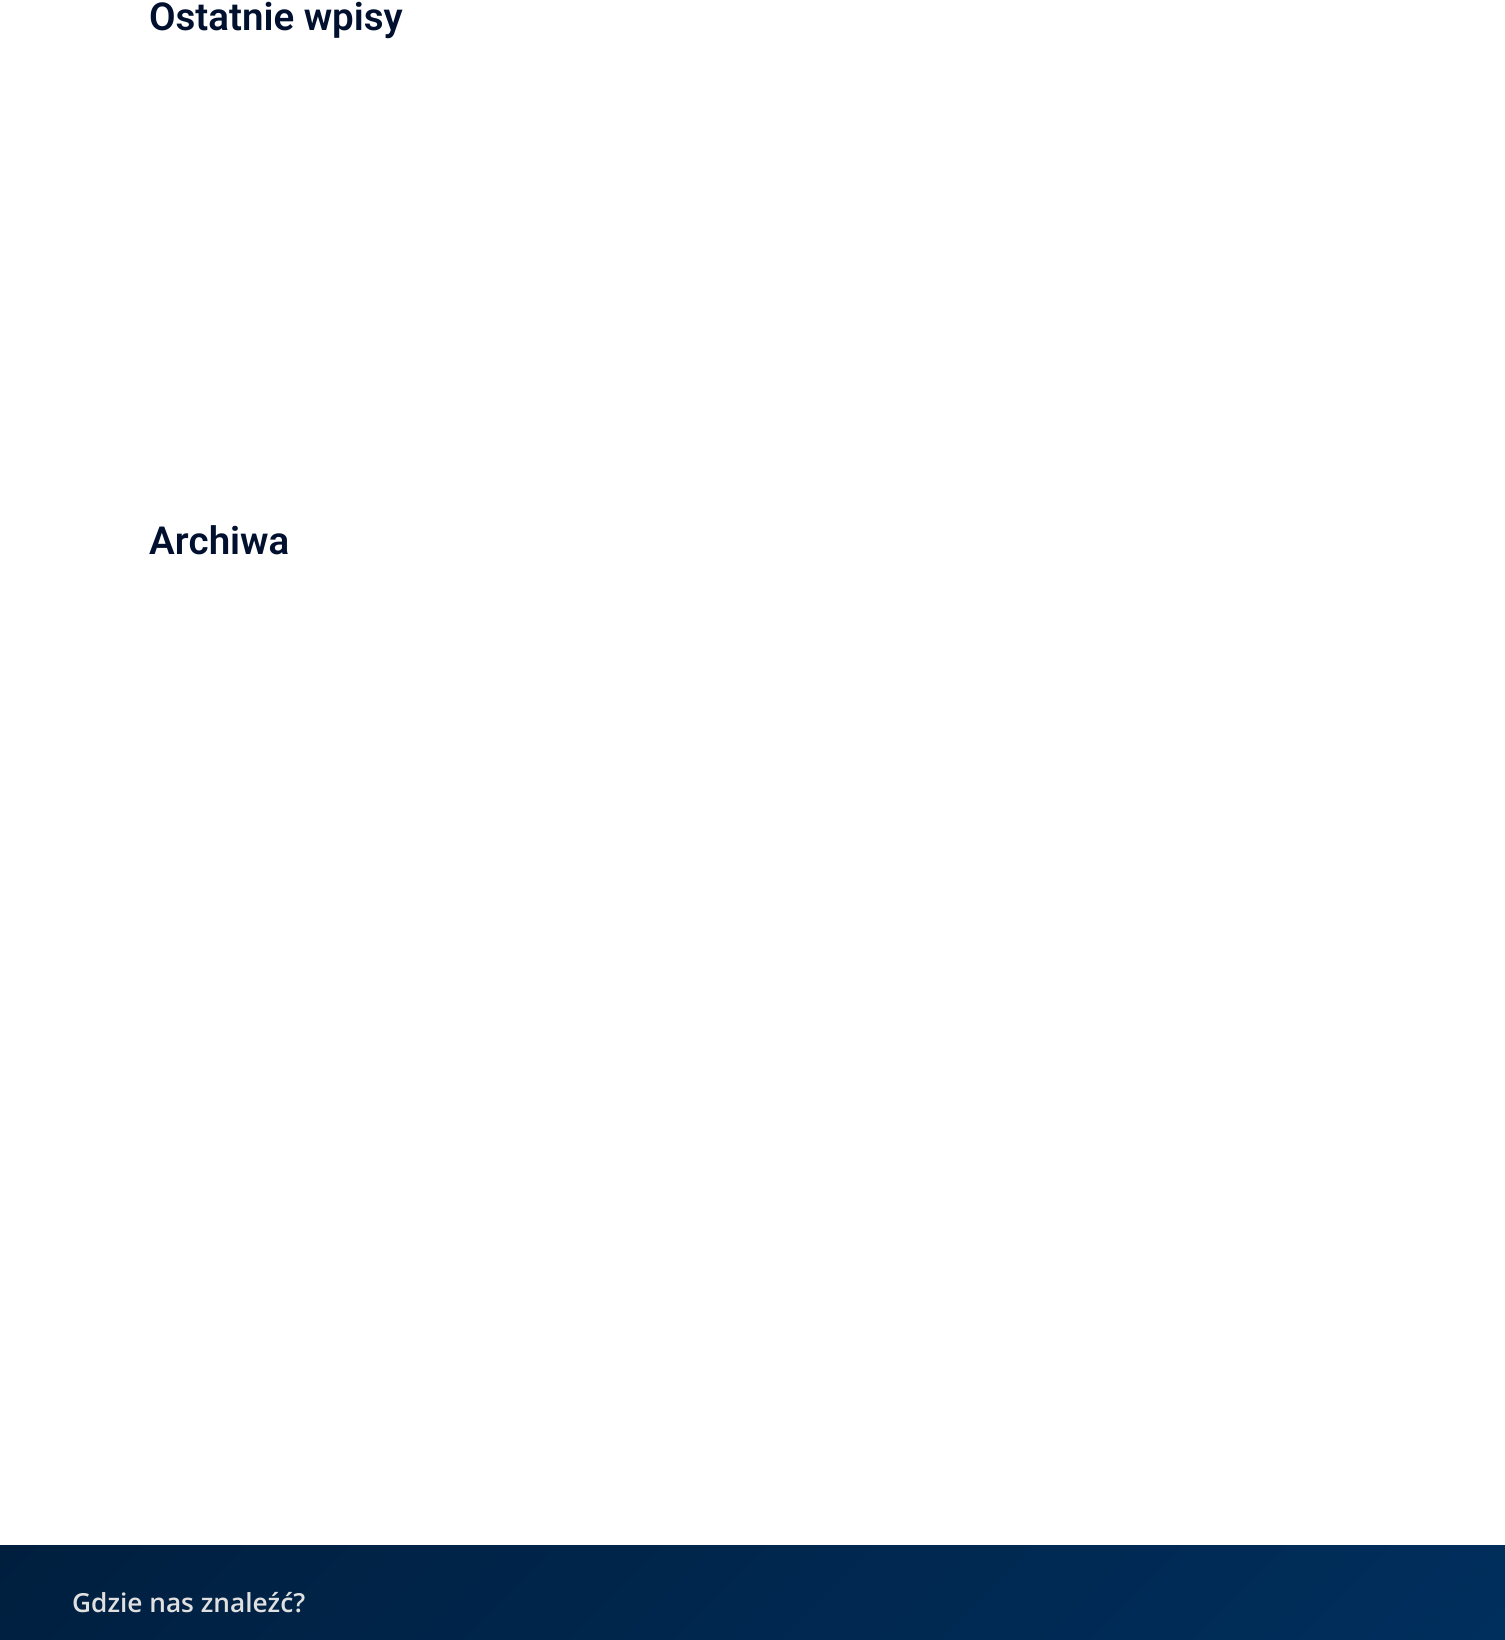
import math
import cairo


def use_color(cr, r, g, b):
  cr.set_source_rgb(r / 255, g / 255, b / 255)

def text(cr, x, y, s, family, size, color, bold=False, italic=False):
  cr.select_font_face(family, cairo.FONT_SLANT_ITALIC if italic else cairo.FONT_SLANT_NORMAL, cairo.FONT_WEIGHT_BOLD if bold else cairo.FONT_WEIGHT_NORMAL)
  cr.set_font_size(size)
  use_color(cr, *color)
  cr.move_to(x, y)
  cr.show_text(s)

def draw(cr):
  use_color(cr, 255, 255, 255)
  cr.paint()
  gradient = cairo.LinearGradient(235, 1310, 1270, 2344)
  gradient.add_color_stop_rgba(0, 0, 0.122, 0.247, 1)
  gradient.add_color_stop_rgba(1, 0, 0.2, 0.4, 1)
  cr.set_source(gradient)
  cr.rectangle(0, 1545, 1505, 95)
  cr.fill()
  text(cr, 149, 30, "Ostatnie wpisy", "Roboto SemiBold", 38.5, (0, 16, 46))
  text(cr, 149, 554, "Archiwa", "Roboto SemiBold", 38.5, (0, 16, 46))
  text(cr, 72, 1612, "Gdzie nas znaleźć?", "Open Sans SemiBold", 26.25, (224, 224, 224))


surface = cairo.ImageSurface(cairo.FORMAT_RGB24, 1505, 1640)
cr = cairo.Context(surface)
options = cairo.FontOptions()
options.set_hint_metrics(cairo.HINT_METRICS_OFF)
options.set_hint_style(cairo.HINT_STYLE_NONE)
cr.set_font_options(options)
cr.set_miter_limit(4)
draw(cr)
surface.write_to_png("out.png")
